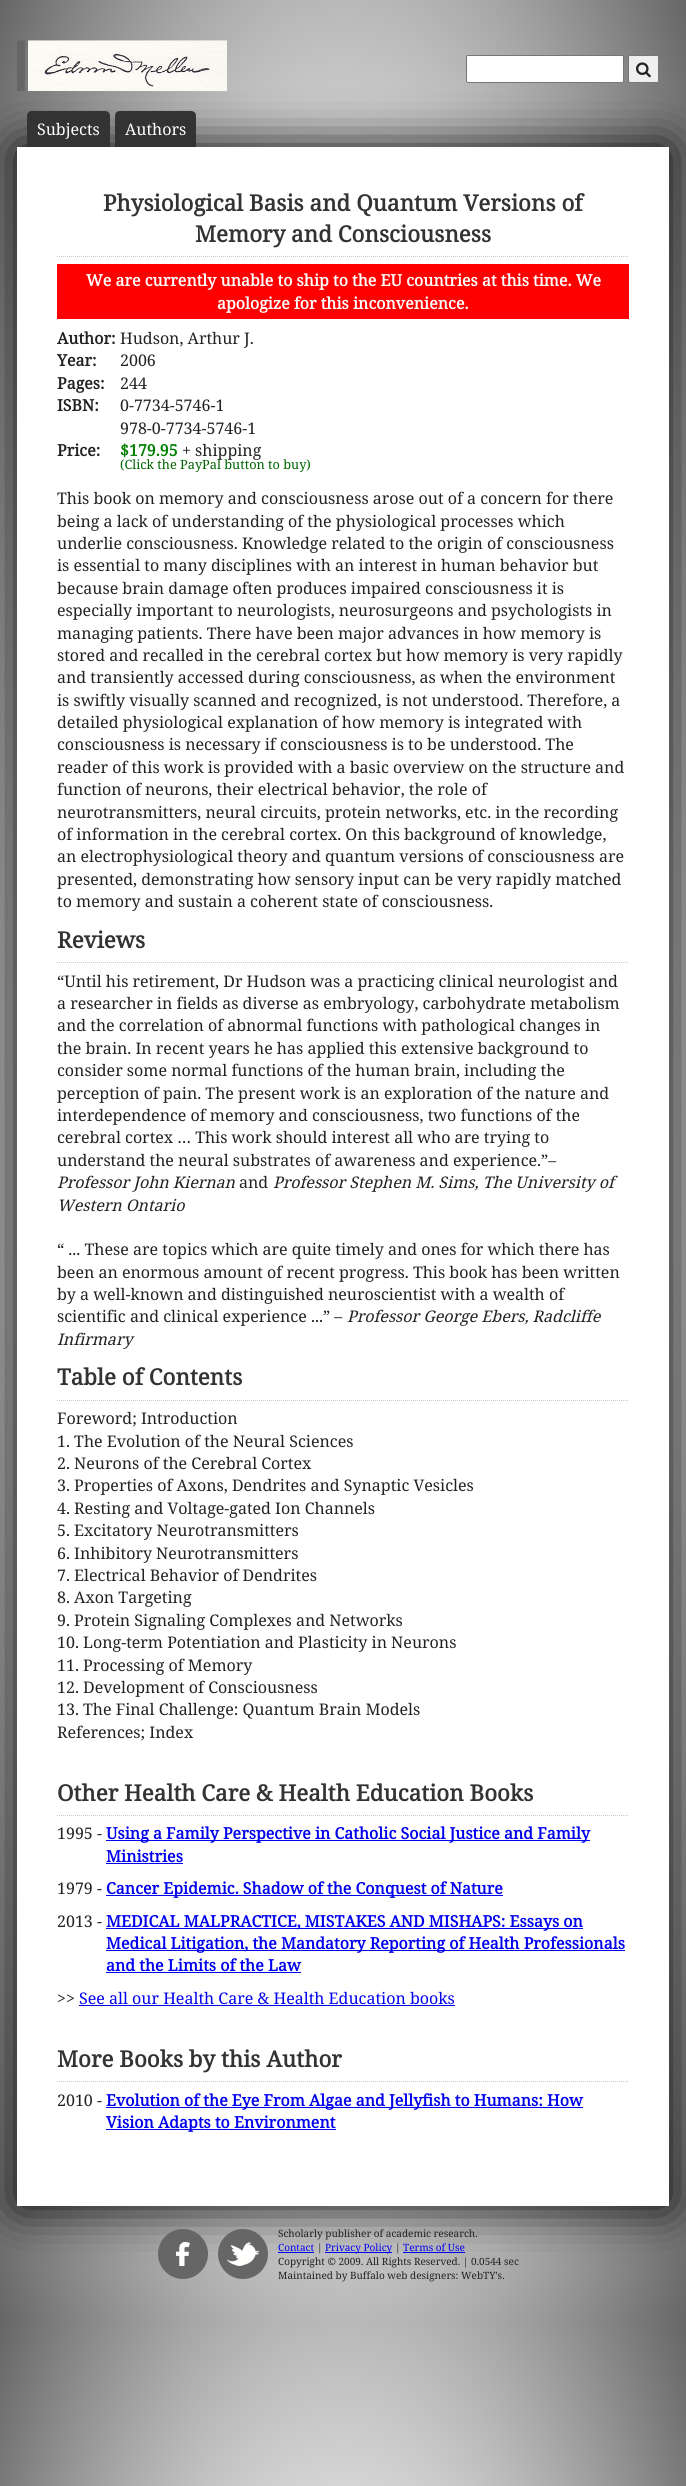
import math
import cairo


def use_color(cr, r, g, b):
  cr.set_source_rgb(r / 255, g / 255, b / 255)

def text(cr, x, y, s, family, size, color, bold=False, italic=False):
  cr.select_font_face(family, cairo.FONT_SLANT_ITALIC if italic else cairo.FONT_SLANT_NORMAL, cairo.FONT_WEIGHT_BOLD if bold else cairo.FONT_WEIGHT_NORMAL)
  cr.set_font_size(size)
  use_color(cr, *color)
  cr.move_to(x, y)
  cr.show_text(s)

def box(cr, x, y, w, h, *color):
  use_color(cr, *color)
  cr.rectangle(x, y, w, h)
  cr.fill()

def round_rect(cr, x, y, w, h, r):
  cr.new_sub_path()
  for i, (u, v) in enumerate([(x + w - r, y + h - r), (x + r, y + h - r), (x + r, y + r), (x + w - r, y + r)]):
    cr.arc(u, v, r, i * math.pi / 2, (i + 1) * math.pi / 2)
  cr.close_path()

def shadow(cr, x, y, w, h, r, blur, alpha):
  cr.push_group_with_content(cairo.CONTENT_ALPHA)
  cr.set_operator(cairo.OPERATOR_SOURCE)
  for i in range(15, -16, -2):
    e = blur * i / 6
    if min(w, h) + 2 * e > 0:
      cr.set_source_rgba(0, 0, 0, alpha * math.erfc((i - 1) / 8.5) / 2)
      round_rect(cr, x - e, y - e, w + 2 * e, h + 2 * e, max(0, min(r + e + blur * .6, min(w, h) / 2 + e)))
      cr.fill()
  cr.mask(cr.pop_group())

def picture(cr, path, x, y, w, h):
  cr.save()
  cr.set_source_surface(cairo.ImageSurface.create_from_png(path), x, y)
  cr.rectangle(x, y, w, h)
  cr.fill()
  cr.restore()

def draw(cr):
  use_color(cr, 255, 255, 255)
  cr.paint()
  gradient = cairo.RadialGradient(0, 0, 0, 0, 0, 1)
  gradient.set_matrix(cairo.Matrix(1 / 485, 0, 0, 1 / 1642, -1 * 343 / 485, -1 * 1161 / 1642))
  gradient.add_color_stop_rgba(0, 0.894, 0.961, 0.988, 1)
  gradient.add_color_stop_rgba(0.52, 0.929, 0.929, 0.929, 1)
  gradient.add_color_stop_rgba(1, 0.4, 0.4, 0.4, 1)
  cr.set_source(gradient)
  cr.rectangle(0, 0, 686, 2322)
  cr.fill()
  gradient = cairo.RadialGradient(0, 0, 0, 0, 0, 1)
  gradient.set_matrix(cairo.Matrix(1 / 485, 0, 0, 1 / 1642, -1 * 343 / 485, -1 * 3483 / 1642))
  gradient.add_color_stop_rgba(0, 0.894, 0.961, 0.988, 1)
  gradient.add_color_stop_rgba(0.52, 0.929, 0.929, 0.929, 1)
  gradient.add_color_stop_rgba(1, 0.4, 0.4, 0.4, 1)
  cr.set_source(gradient)
  cr.rectangle(0, 2322, 686, 164)
  cr.fill()
  use_color(cr, 0, 0, 0)
  shadow(cr, 17, 147, 652, 2059, 0, 25, 1)
  picture(cr, "img_01.png", 17, 40, 210, 51)
  use_color(cr, 255, 255, 255)
  round_rect(cr, 466.5, 55.5, 157, 27, 1.5)
  cr.fill_preserve()
  use_color(cr, 118, 118, 118)
  cr.set_line_width(1)
  cr.stroke()
  use_color(cr, 239, 239, 239)
  round_rect(cr, 628.5, 55.5, 30, 27, 1.5)
  cr.fill_preserve()
  use_color(cr, 118, 118, 118)
  cr.stroke()
  picture(cr, "img_02.png", 636, 62, 15, 16)
  use_color(cr, 51, 51, 51)
  cr.new_path()
  cr.move_to(32, 111)
  cr.line_to(105, 111)
  cr.curve_to(108, 111, 110, 113, 110, 116)
  cr.line_to(110, 147)
  cr.line_to(27, 147)
  cr.line_to(27, 116)
  cr.curve_to(27, 113, 29, 111, 32, 111)
  cr.close_path()
  cr.fill()
  cr.new_path()
  cr.move_to(120, 111)
  cr.line_to(191, 111)
  cr.curve_to(194, 111, 196, 113, 196, 116)
  cr.line_to(196, 147)
  cr.line_to(115, 147)
  cr.line_to(115, 116)
  cr.curve_to(115, 113, 117, 111, 120, 111)
  cr.close_path()
  cr.fill()
  box(cr, 17, 147, 652, 2059, 255, 255, 255)
  cr.new_path()
  cr.move_to(57, 256.5)
  cr.line_to(629, 256.5)
  use_color(cr, 204, 204, 204)
  cr.set_dash([1, 1])
  cr.stroke()
  box(cr, 57, 264, 572, 55, 255, 0, 0)
  cr.new_path()
  cr.move_to(57, 962.5)
  cr.line_to(629, 962.5)
  use_color(cr, 204, 204, 204)
  cr.stroke()
  cr.new_path()
  cr.move_to(57, 1400.5)
  cr.line_to(629, 1400.5)
  cr.stroke()
  cr.new_path()
  cr.move_to(57, 1815.5)
  cr.line_to(629, 1815.5)
  cr.stroke()
  box(cr, 106, 1840, 484, 1, 0, 0, 238)
  box(cr, 106, 1863, 77, 1, 0, 0, 238)
  box(cr, 106, 1895, 397, 1, 0, 0, 238)
  box(cr, 106, 1928, 477, 1, 0, 0, 238)
  box(cr, 106, 1950, 519, 1, 0, 0, 238)
  box(cr, 106, 1972, 195, 1, 0, 0, 238)
  box(cr, 79, 2005, 376, 1, 0, 0, 238)
  cr.new_path()
  cr.move_to(57, 2081.5)
  cr.line_to(629, 2081.5)
  use_color(cr, 204, 204, 204)
  cr.stroke()
  box(cr, 106, 2107, 477, 1, 0, 0, 238)
  box(cr, 106, 2129, 230, 1, 0, 0, 238)
  use_color(cr, 102, 102, 102)
  cr.arc(183, 2254, 25, 0, 2 * math.pi)
  cr.fill()
  picture(cr, "img_03.png", 176, 2242, 14, 24)
  cr.arc(243, 2254, 25, 0, 2 * math.pi)
  cr.fill()
  picture(cr, "img_04.png", 227, 2242, 32, 24)
  box(cr, 278, 2252, 36, 1, 0, 0, 238)
  box(cr, 325, 2252, 67, 1, 0, 0, 238)
  box(cr, 403, 2252, 62, 1, 0, 0, 238)
  text(cr, 37, 135, "Subjects", "Noto Serif", 16, (255, 255, 255))
  text(cr, 125, 135, "Authors", "Noto Serif", 16, (255, 255, 255))
  text(cr, 103, 211, "Physiological Basis and Quantum Versions of", "Noto Serif", 22.4, (51, 51, 51), bold=True)
  text(cr, 195, 242, "Memory and Consciousness", "Noto Serif", 22.4, (51, 51, 51), bold=True)
  text(cr, 86, 286, "We are currently unable to ship to the EU countries at this time. We", "Noto Serif", 16, (255, 255, 255), bold=True)
  text(cr, 217, 309, "apologize for this inconvenience.", "Noto Serif", 16, (255, 255, 255), bold=True)
  text(cr, 57, 344, "Author:", "Noto Serif", 16, (34, 34, 34), bold=True)
  text(cr, 120, 344, "Hudson, Arthur J.", "Noto Serif", 16, (34, 34, 34))
  text(cr, 57, 366, "Year:", "Noto Serif", 16, (34, 34, 34), bold=True)
  text(cr, 120, 366, "2006", "Noto Serif", 16, (34, 34, 34))
  text(cr, 57, 389, "Pages:", "Noto Serif", 16, (34, 34, 34), bold=True)
  text(cr, 120, 389, "244", "Noto Serif", 16, (34, 34, 34))
  text(cr, 57, 411, "ISBN:", "Noto Serif", 16, (34, 34, 34), bold=True)
  text(cr, 120, 411, "0-7734-5746-1", "Noto Serif", 16, (34, 34, 34))
  text(cr, 120, 434, "978-0-7734-5746-1", "Noto Serif", 16, (34, 34, 34))
  text(cr, 57, 456, "Price:", "Noto Serif", 16, (34, 34, 34), bold=True)
  text(cr, 120, 456, "$179.95", "Noto Serif", 16, (0, 128, 0), bold=True)
  text(cr, 182, 456, "+ shipping", "Noto Serif", 16, (34, 34, 34))
  text(cr, 120, 469, "(Click the PayPal button to buy)", "Noto Serif", 12.75, (0, 100, 0))
  text(cr, 57, 504, "This book on memory and consciousness arose out of a concern for there", "Noto Serif", 16, (34, 34, 34))
  text(cr, 57, 527, "being a lack of understanding of the physiological processes which", "Noto Serif", 16, (34, 34, 34))
  text(cr, 57, 549, "underlie consciousness. Knowledge related to the origin of consciousness", "Noto Serif", 16, (34, 34, 34))
  text(cr, 57, 571, "is essential to many disciplines with an interest in human behavior but", "Noto Serif", 16, (34, 34, 34))
  text(cr, 57, 594, "because brain damage often produces impaired consciousness it is", "Noto Serif", 16, (34, 34, 34))
  text(cr, 57, 616, "especially important to neurologists, neurosurgeons and psychologists in", "Noto Serif", 16, (34, 34, 34))
  text(cr, 57, 639, "managing patients. There have been major advances in how memory is", "Noto Serif", 16, (34, 34, 34))
  text(cr, 57, 661, "stored and recalled in the cerebral cortex but how memory is very rapidly", "Noto Serif", 16, (34, 34, 34))
  text(cr, 57, 683, "and transiently accessed during consciousness, as when the environment", "Noto Serif", 16, (34, 34, 34))
  text(cr, 57, 706, "is swiftly visually scanned and recognized, is not understood. Therefore, a", "Noto Serif", 16, (34, 34, 34))
  text(cr, 57, 728, "detailed physiological explanation of how memory is integrated with", "Noto Serif", 16, (34, 34, 34))
  text(cr, 57, 750, "consciousness is necessary if consciousness is to be understood. The", "Noto Serif", 16, (34, 34, 34))
  text(cr, 57, 773, "reader of this work is provided with a basic overview on the structure and", "Noto Serif", 16, (34, 34, 34))
  text(cr, 57, 795, "function of neurons, their electrical behavior, the role of", "Noto Serif", 16, (34, 34, 34))
  text(cr, 57, 818, "neurotransmitters, neural circuits, protein networks, etc. in the recording", "Noto Serif", 16, (34, 34, 34))
  text(cr, 57, 840, "of information in the cerebral cortex. On this background of knowledge,", "Noto Serif", 16, (34, 34, 34))
  text(cr, 57, 862, "an electrophysiological theory and quantum versions of consciousness are", "Noto Serif", 16, (34, 34, 34))
  text(cr, 57, 885, "presented, demonstrating how sensory input can be very rapidly matched", "Noto Serif", 16, (34, 34, 34))
  text(cr, 57, 907, "to memory and sustain a coherent state of consciousness.", "Noto Serif", 16, (34, 34, 34))
  text(cr, 57, 948, "Reviews", "Noto Serif", 22.4, (51, 51, 51), bold=True)
  text(cr, 57, 987, "“Until his retirement, Dr Hudson was a practicing clinical neurologist and", "Noto Serif", 16, (34, 34, 34))
  text(cr, 57, 1009, "a researcher in fields as diverse as embryology, carbohydrate metabolism", "Noto Serif", 16, (34, 34, 34))
  text(cr, 57, 1031, "and the correlation of abnormal functions with pathological changes in", "Noto Serif", 16, (34, 34, 34))
  text(cr, 57, 1054, "the brain. In recent years he has applied this extensive background to", "Noto Serif", 16, (34, 34, 34))
  text(cr, 57, 1076, "consider some normal functions of the human brain, including the", "Noto Serif", 16, (34, 34, 34))
  text(cr, 57, 1099, "perception of pain. The present work is an exploration of the nature and", "Noto Serif", 16, (34, 34, 34))
  text(cr, 57, 1121, "interdependence of memory and consciousness, two functions of the", "Noto Serif", 16, (34, 34, 34))
  text(cr, 57, 1143, "cerebral cortex … This work should interest all who are trying to", "Noto Serif", 16, (34, 34, 34))
  text(cr, 57, 1166, "understand the neural substrates of awareness and experience.”–", "Noto Serif", 16, (34, 34, 34))
  text(cr, 57, 1188, "Professor John Kiernan", "Noto Serif", 16, (34, 34, 34), italic=True)
  text(cr, 239, 1188, "and", "Noto Serif", 16, (34, 34, 34))
  text(cr, 273, 1188, "Professor Stephen M. Sims, The University of", "Noto Serif", 16, (34, 34, 34), italic=True)
  text(cr, 57, 1211, "Western Ontario", "Noto Serif", 16, (34, 34, 34), italic=True)
  text(cr, 57, 1255, "“ ... These are topics which are quite timely and ones for which there has", "Noto Serif", 16, (34, 34, 34))
  text(cr, 57, 1278, "been an enormous amount of recent progress. This book has been written", "Noto Serif", 16, (34, 34, 34))
  text(cr, 57, 1300, "by a well-known and distinguished neuroscientist with a wealth of", "Noto Serif", 16, (34, 34, 34))
  text(cr, 57, 1322, "scientific and clinical experience ...” –", "Noto Serif", 16, (34, 34, 34))
  text(cr, 347, 1322, "Professor George Ebers, Radcliffe", "Noto Serif", 16, (34, 34, 34), italic=True)
  text(cr, 57, 1345, "Infirmary", "Noto Serif", 16, (34, 34, 34), italic=True)
  text(cr, 57, 1385, "Table of Contents", "Noto Serif", 22.4, (51, 51, 51), bold=True)
  text(cr, 57, 1424, "Foreword; Introduction", "Noto Serif", 16, (34, 34, 34))
  text(cr, 57, 1447, "1. The Evolution of the Neural Sciences", "Noto Serif", 16, (34, 34, 34))
  text(cr, 57, 1469, "2. Neurons of the Cerebral Cortex", "Noto Serif", 16, (34, 34, 34))
  text(cr, 57, 1491, "3. Properties of Axons, Dendrites and Synaptic Vesicles", "Noto Serif", 16, (34, 34, 34))
  text(cr, 57, 1514, "4. Resting and Voltage-gated Ion Channels", "Noto Serif", 16, (34, 34, 34))
  text(cr, 57, 1536, "5. Excitatory Neurotransmitters", "Noto Serif", 16, (34, 34, 34))
  text(cr, 57, 1559, "6. Inhibitory Neurotransmitters", "Noto Serif", 16, (34, 34, 34))
  text(cr, 57, 1581, "7. Electrical Behavior of Dendrites", "Noto Serif", 16, (34, 34, 34))
  text(cr, 57, 1603, "8. Axon Targeting", "Noto Serif", 16, (34, 34, 34))
  text(cr, 57, 1626, "9. Protein Signaling Complexes and Networks", "Noto Serif", 16, (34, 34, 34))
  text(cr, 57, 1648, "10. Long-term Potentiation and Plasticity in Neurons", "Noto Serif", 16, (34, 34, 34))
  text(cr, 57, 1671, "11. Processing of Memory", "Noto Serif", 16, (34, 34, 34))
  text(cr, 57, 1693, "12. Development of Consciousness", "Noto Serif", 16, (34, 34, 34))
  text(cr, 57, 1715, "13. The Final Challenge: Quantum Brain Models", "Noto Serif", 16, (34, 34, 34))
  text(cr, 57, 1738, "References; Index", "Noto Serif", 16, (34, 34, 34))
  text(cr, 57, 1801, "Other Health Care & Health Education Books", "Noto Serif", 22.4, (51, 51, 51), bold=True)
  text(cr, 57, 1839, "1995 -", "Noto Serif", 16, (34, 34, 34))
  text(cr, 106, 1839, "Using a Family Perspective in Catholic Social Justice and Family", "Noto Serif", 16, (0, 0, 238), bold=True)
  text(cr, 106, 1862, "Ministries", "Noto Serif", 16, (0, 0, 238), bold=True)
  text(cr, 57, 1894, "1979 -", "Noto Serif", 16, (34, 34, 34))
  text(cr, 106, 1894, "Cancer Epidemic. Shadow of the Conquest of Nature", "Noto Serif", 16, (0, 0, 238), bold=True)
  text(cr, 57, 1927, "2013 -", "Noto Serif", 16, (34, 34, 34))
  text(cr, 106, 1927, "MEDICAL MALPRACTICE, MISTAKES AND MISHAPS: Essays on", "Noto Serif", 16, (0, 0, 238), bold=True)
  text(cr, 106, 1949, "Medical Litigation, the Mandatory Reporting of Health Professionals", "Noto Serif", 16, (0, 0, 238), bold=True)
  text(cr, 106, 1971, "and the Limits of the Law", "Noto Serif", 16, (0, 0, 238), bold=True)
  text(cr, 57, 2004, ">>", "Noto Serif", 16, (34, 34, 34))
  text(cr, 79, 2004, "See all our Health Care & Health Education books", "Noto Serif", 16, (0, 0, 238))
  text(cr, 57, 2067, "More Books by this Author", "Noto Serif", 22.4, (51, 51, 51), bold=True)
  text(cr, 57, 2106, "2010 -", "Noto Serif", 16, (34, 34, 34))
  text(cr, 106, 2106, "Evolution of the Eye From Algae and Jellyfish to Humans: How", "Noto Serif", 16, (0, 0, 238), bold=True)
  text(cr, 106, 2128, "Vision Adapts to Environment", "Noto Serif", 16, (0, 0, 238), bold=True)
  text(cr, 278, 2237, "Scholarly publisher of academic research.", "Noto Serif", 10, (34, 34, 34))
  text(cr, 278, 2251, "Contact", "Noto Serif", 10, (0, 0, 238))
  text(cr, 317, 2251, "|", "Noto Serif", 10, (34, 34, 34))
  text(cr, 325, 2251, "Privacy Policy", "Noto Serif", 10, (0, 0, 238))
  text(cr, 395, 2251, "|", "Noto Serif", 10, (34, 34, 34))
  text(cr, 403, 2251, "Terms of Use", "Noto Serif", 10, (0, 0, 238))
  text(cr, 278, 2265, "Copyright © 2009. All Rights Reserved. | 0.0544 sec", "Noto Serif", 10, (34, 34, 34))
  text(cr, 278, 2279, "Maintained by Buffalo web designers: WebTY's.", "Noto Serif", 10, (34, 34, 34))


surface = cairo.ImageSurface(cairo.FORMAT_RGB24, 686, 2486)
cr = cairo.Context(surface)
options = cairo.FontOptions()
options.set_hint_metrics(cairo.HINT_METRICS_OFF)
options.set_hint_style(cairo.HINT_STYLE_NONE)
cr.set_font_options(options)
cr.set_miter_limit(4)
draw(cr)
surface.write_to_png("out.png")
